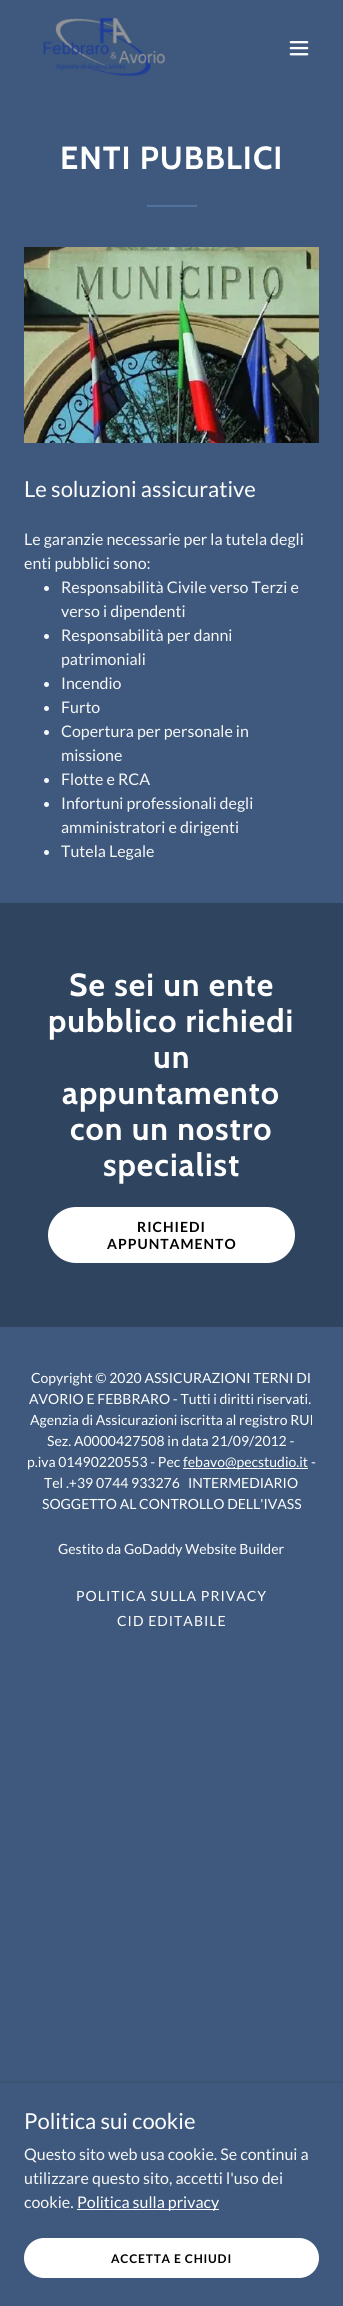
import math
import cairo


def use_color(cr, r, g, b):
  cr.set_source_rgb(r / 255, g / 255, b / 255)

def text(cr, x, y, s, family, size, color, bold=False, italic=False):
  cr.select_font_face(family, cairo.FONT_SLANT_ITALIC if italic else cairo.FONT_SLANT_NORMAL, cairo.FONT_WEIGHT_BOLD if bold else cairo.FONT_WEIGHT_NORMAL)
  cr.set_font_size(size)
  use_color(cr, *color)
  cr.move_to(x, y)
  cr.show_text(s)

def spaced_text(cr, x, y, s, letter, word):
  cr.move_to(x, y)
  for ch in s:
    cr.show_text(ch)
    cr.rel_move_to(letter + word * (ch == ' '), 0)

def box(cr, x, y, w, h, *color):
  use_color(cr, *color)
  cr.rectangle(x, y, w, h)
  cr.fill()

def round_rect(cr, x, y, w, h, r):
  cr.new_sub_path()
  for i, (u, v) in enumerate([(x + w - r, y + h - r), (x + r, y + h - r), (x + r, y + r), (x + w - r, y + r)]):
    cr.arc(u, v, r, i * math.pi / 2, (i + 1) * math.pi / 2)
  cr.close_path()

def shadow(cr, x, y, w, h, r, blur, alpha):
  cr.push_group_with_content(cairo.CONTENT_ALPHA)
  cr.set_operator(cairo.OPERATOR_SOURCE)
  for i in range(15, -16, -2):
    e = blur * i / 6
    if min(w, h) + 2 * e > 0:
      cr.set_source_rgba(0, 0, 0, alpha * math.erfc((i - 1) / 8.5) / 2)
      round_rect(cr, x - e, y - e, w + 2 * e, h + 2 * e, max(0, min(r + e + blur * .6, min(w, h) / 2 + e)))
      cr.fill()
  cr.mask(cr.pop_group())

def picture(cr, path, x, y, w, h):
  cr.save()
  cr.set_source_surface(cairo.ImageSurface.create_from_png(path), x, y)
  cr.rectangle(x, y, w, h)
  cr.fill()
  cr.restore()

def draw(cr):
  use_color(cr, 62, 89, 125)
  cr.paint()
  picture(cr, "img_01.png", 43, 18, 123, 58)
  picture(cr, "img_02.png", 289, 41, 20, 15)
  box(cr, 147, 205, 50, 2, 80, 114, 158)
  picture(cr, "img_03.png", 24, 247, 295, 196)
  use_color(cr, 247, 247, 247)
  cr.arc(46.5, 588.5, 2.5, 0, 2 * math.pi)
  cr.fill()
  cr.arc(46.5, 636.5, 2.5, 0, 2 * math.pi)
  cr.fill()
  cr.arc(46.5, 684.5, 2.5, 0, 2 * math.pi)
  cr.fill()
  cr.arc(46.5, 708.5, 2.5, 0, 2 * math.pi)
  cr.fill()
  cr.arc(46.5, 732.5, 2.5, 0, 2 * math.pi)
  cr.fill()
  cr.arc(46.5, 780.5, 2.5, 0, 2 * math.pi)
  cr.fill()
  cr.arc(46.5, 804.5, 2.5, 0, 2 * math.pi)
  cr.fill()
  cr.arc(46.5, 852.5, 2.5, 0, 2 * math.pi)
  cr.fill()
  box(cr, 0, 903, 343, 424, 47, 68, 95)
  use_color(cr, 255, 255, 255)
  round_rect(cr, 48, 1207, 247, 56, 28)
  cr.fill()
  box(cr, 183, 1468, 125, 1, 255, 255, 255)
  use_color(cr, 0, 0, 0)
  shadow(cr, 0, 2085, 343, 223, 0, 3, 0.3)
  box(cr, 0, 2083, 343, 223, 62, 89, 125)
  box(cr, 77, 2209, 142, 1, 255, 255, 255)
  round_rect(cr, 24, 2238, 295, 40, 20)
  cr.fill()
  cr.select_font_face("Cabin", cairo.FONT_SLANT_NORMAL, cairo.FONT_WEIGHT_BOLD)
  cr.set_font_size(32)
  spaced_text(cr, 60, 169, "ENTI PUBBLICI", 1, 0)
  text(cr, 24, 497, "Le soluzioni assicurative", "Lato", 22, (255, 255, 255))
  text(cr, 24, 545, "Le garanzie necessarie per la tutela degli", "Lato", 16, (247, 247, 247))
  text(cr, 24, 569, "enti pubblici sono:", "Lato", 16, (247, 247, 247))
  text(cr, 61, 593, "Responsabilità Civile verso Terzi e", "Lato", 16, (247, 247, 247))
  text(cr, 61, 617, "verso i dipendenti", "Lato", 16, (247, 247, 247))
  text(cr, 61, 641, "Responsabilità per danni", "Lato", 16, (247, 247, 247))
  text(cr, 61, 665, "patrimoniali", "Lato", 16, (247, 247, 247))
  text(cr, 61, 689, "Incendio", "Lato", 16, (247, 247, 247))
  text(cr, 61, 713, "Furto", "Lato", 16, (247, 247, 247))
  text(cr, 61, 737, "Copertura per personale in", "Lato", 16, (247, 247, 247))
  text(cr, 61, 761, "missione", "Lato", 16, (247, 247, 247))
  text(cr, 61, 785, "Flotte e RCA", "Lato", 16, (247, 247, 247))
  text(cr, 61, 809, "Infortuni professionali degli", "Lato", 16, (247, 247, 247))
  text(cr, 61, 833, "amministratori e dirigenti", "Lato", 16, (247, 247, 247))
  text(cr, 61, 857, "Tutela Legale", "Lato", 16, (247, 247, 247))
  cr.select_font_face("Cabin", cairo.FONT_SLANT_NORMAL, cairo.FONT_WEIGHT_BOLD)
  cr.set_font_size(32)
  use_color(cr, 255, 255, 255)
  spaced_text(cr, 69, 996, "Se sei un ente", 1, 0)
  spaced_text(cr, 48, 1032, "pubblico richiedi", 1, 0)
  spaced_text(cr, 153, 1068, "un", 1, 0)
  spaced_text(cr, 62, 1104, "appuntamento", 1, 0)
  spaced_text(cr, 70, 1140, "con un nostro", 1, 0)
  spaced_text(cr, 103, 1176, "specialist", 1, 0)
  cr.select_font_face("Lato", cairo.FONT_SLANT_NORMAL, cairo.FONT_WEIGHT_BOLD)
  cr.set_font_size(14)
  use_color(cr, 0, 0, 0)
  spaced_text(cr, 137, 1232, "RICHIEDI", 1, 0)
  spaced_text(cr, 107, 1249, "APPUNTAMENTO", 1, 0)
  text(cr, 31, 1383, "Copyright © 2020 ASSICURAZIONI TERNI DI", "Lato", 14, (255, 255, 255))
  text(cr, 29, 1404, "AVORIO E FEBBRARO - Tutti i diritti riservati.", "Lato", 14, (255, 255, 255))
  text(cr, 30, 1425, "Agenzia di Assicurazioni iscritta al registro RUI", "Lato", 14, (255, 255, 255))
  text(cr, 47, 1446, "Sez. A0000427508 in data 21/09/2012 -", "Lato", 14, (255, 255, 255))
  text(cr, 27, 1467, "p.iva 01490220553 - Pec", "Lato", 14, (255, 255, 255))
  text(cr, 183, 1467, "febavo@pecstudio.it", "Lato", 14, (255, 255, 255))
  text(cr, 311, 1467, "-", "Lato", 14, (255, 255, 255))
  text(cr, 44, 1488, "Tel .+39 0744 933276   INTERMEDIARIO", "Lato", 14, (255, 255, 255))
  text(cr, 42, 1509, "SOGGETTO AL CONTROLLO DELL'IVASS", "Lato", 14, (255, 255, 255))
  text(cr, 58, 1554, "Gestito da", "Lato", 14, (255, 255, 255))
  text(cr, 124, 1554, "GoDaddy", "Lato", 14, (255, 255, 255))
  text(cr, 185, 1554, "Website Builder", "Lato", 14, (255, 255, 255))
  spaced_text(cr, 76, 1601, "POLITICA SULLA PRIVACY", 1, 0)
  spaced_text(cr, 117, 1626, "CID EDITABILE", 1, 0)
  text(cr, 24, 2129, "Politica sui cookie", "Lato", 22, (255, 255, 255))
  text(cr, 24, 2160, "Questo sito web usa cookie. Se continui a", "Lato", 16, (247, 247, 247))
  text(cr, 24, 2184, "utilizzare questo sito, accetti l'uso dei", "Lato", 16, (247, 247, 247))
  text(cr, 24, 2208, "cookie.", "Lato", 16, (247, 247, 247))
  text(cr, 77, 2208, "Politica sulla privacy", "Lato", 16, (255, 255, 255))
  cr.select_font_face("Lato", cairo.FONT_SLANT_NORMAL, cairo.FONT_WEIGHT_BOLD)
  cr.set_font_size(12)
  use_color(cr, 0, 0, 0)
  spaced_text(cr, 111, 2263, "ACCETTA E CHIUDI", 0.8, 0)


surface = cairo.ImageSurface(cairo.FORMAT_RGB24, 343, 2306)
cr = cairo.Context(surface)
options = cairo.FontOptions()
options.set_hint_metrics(cairo.HINT_METRICS_OFF)
options.set_hint_style(cairo.HINT_STYLE_NONE)
cr.set_font_options(options)
cr.set_miter_limit(4)
draw(cr)
surface.write_to_png("out.png")
